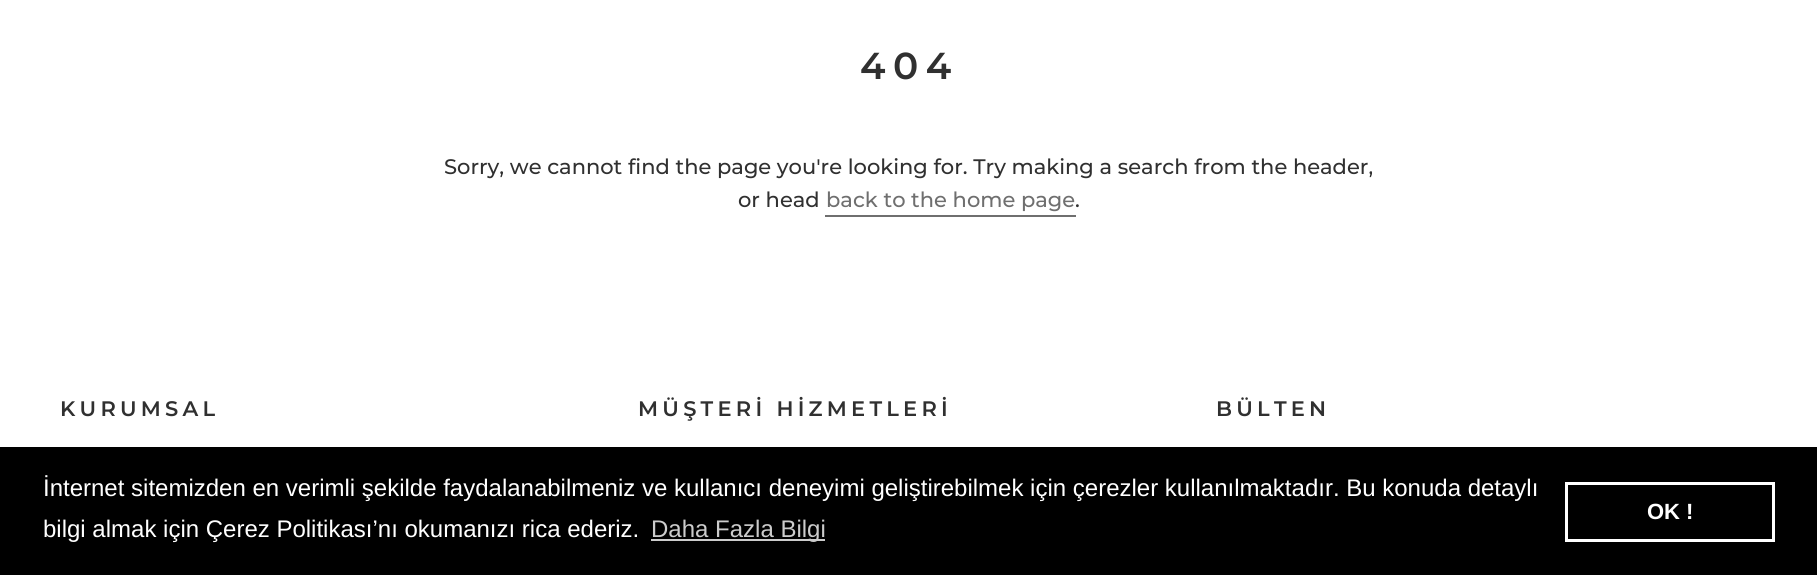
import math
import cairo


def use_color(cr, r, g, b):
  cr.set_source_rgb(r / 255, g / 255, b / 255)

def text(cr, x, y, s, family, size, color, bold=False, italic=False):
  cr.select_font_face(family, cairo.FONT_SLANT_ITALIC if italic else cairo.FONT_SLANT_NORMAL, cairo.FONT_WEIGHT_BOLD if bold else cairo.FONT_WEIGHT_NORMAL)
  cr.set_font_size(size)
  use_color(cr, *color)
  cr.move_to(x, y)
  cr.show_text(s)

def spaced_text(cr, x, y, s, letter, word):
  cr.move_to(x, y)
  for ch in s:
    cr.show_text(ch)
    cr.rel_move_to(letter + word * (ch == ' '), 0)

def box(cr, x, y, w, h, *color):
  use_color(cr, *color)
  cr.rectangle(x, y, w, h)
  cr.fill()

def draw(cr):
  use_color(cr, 255, 255, 255)
  cr.paint()
  box(cr, 825, 215, 251, 2, 111, 111, 111)
  box(cr, 0, 447, 1817, 128, 0, 0, 0)
  box(cr, 651, 539, 174, 2, 204, 204, 204)
  cr.rectangle(1566.5, 483.5, 207, 57)
  use_color(cr, 255, 255, 255)
  cr.set_line_width(3)
  cr.stroke()
  cr.select_font_face("Montserrat SemiBold")
  cr.set_font_size(37.5)
  use_color(cr, 48, 48, 48)
  spaced_text(cr, 860, 79, "404", 7.5, 0)
  text(cr, 444, 174, "Sorry, we cannot find the page you're looking for. Try making a search from the header,", "Montserrat Medium", 21, (48, 48, 48))
  text(cr, 738, 207, "or head", "Montserrat Medium", 21, (48, 48, 48))
  text(cr, 826, 207, "back to the home page", "Montserrat Medium", 21, (111, 111, 111))
  text(cr, 1075, 207, ".", "Montserrat Medium", 21, (48, 48, 48))
  cr.select_font_face("Montserrat SemiBold")
  spaced_text(cr, 60, 416, "KURUMSAL", 4.25, 0)
  spaced_text(cr, 638, 416, "MÜŞTERİ HİZMETLERİ", 4.25, 0)
  spaced_text(cr, 1216, 416, "BÜLTEN", 4.25, 0)
  text(cr, 43, 496, "İnternet sitemizden en verimli şekilde faydalanabilmeniz ve kullanıcı deneyimi geliştirebilmek için çerezler kullanılmaktadır. Bu konuda detaylı", "Liberation Sans", 24, (255, 255, 255))
  text(cr, 43, 537, "bilgi almak için Çerez Politikası’nı okumanızı rica ederiz.", "Liberation Sans", 24, (255, 255, 255))
  text(cr, 651, 537, "Daha Fazla Bilgi", "Liberation Sans", 24, (204, 204, 204))
  text(cr, 1647, 519, "OK !", "Liberation Sans", 22, (255, 255, 255), bold=True)


surface = cairo.ImageSurface(cairo.FORMAT_RGB24, 1817, 575)
cr = cairo.Context(surface)
options = cairo.FontOptions()
options.set_hint_metrics(cairo.HINT_METRICS_OFF)
options.set_hint_style(cairo.HINT_STYLE_NONE)
cr.set_font_options(options)
cr.set_miter_limit(4)
draw(cr)
surface.write_to_png("out.png")
